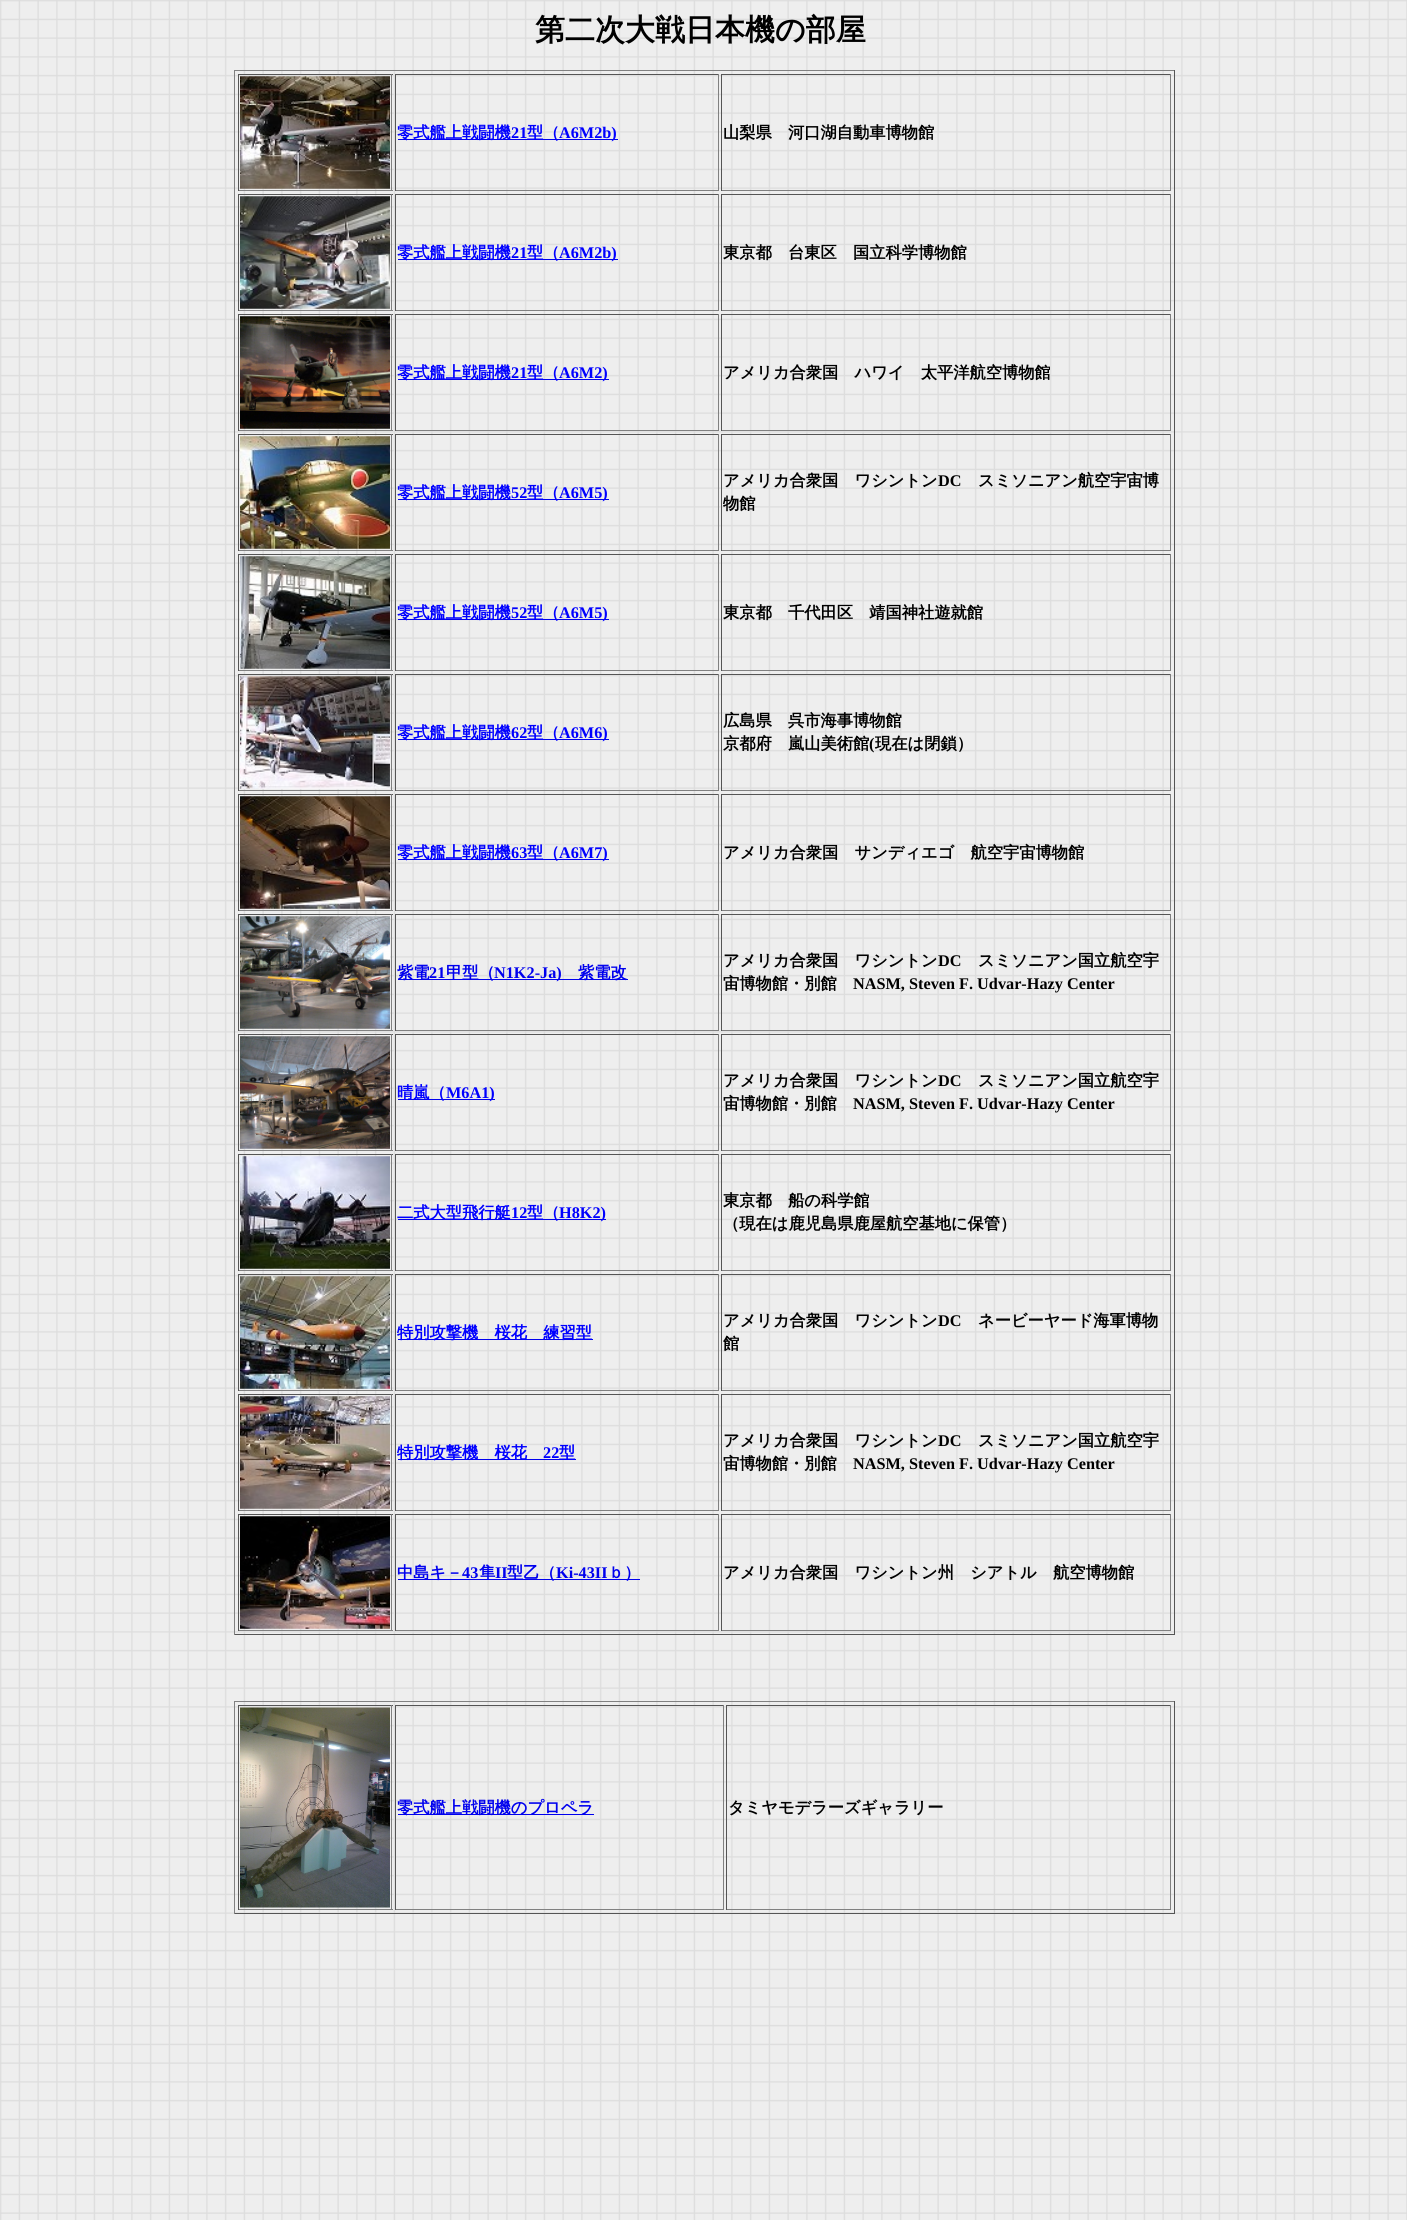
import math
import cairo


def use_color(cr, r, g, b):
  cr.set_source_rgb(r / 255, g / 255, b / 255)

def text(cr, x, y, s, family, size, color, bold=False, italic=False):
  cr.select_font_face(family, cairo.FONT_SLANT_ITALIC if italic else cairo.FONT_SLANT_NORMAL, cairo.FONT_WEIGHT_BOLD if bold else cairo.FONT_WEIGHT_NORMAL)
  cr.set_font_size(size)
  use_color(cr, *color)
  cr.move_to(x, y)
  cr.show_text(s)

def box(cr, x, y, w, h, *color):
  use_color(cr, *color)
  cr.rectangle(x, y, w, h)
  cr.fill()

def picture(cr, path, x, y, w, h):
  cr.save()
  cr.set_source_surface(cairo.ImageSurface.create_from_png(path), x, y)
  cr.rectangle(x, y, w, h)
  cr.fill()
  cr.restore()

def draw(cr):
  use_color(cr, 255, 255, 255)
  cr.paint()
  picture(cr, "img_01.png", 0, 0, 1407, 2220)
  box(cr, 234, 70, 941, 1, 128, 128, 128)
  box(cr, 1174, 70, 1, 1565, 85, 85, 85)
  box(cr, 234, 1634, 941, 1, 85, 85, 85)
  box(cr, 234, 70, 1, 1565, 128, 128, 128)
  box(cr, 238, 74, 155, 1, 85, 85, 85)
  box(cr, 391, 74, 1, 117, 128, 128, 128)
  box(cr, 238, 190, 155, 1, 128, 128, 128)
  box(cr, 238, 74, 1, 117, 85, 85, 85)
  picture(cr, "img_02.png", 240, 76, 150, 113)
  box(cr, 395, 74, 324, 1, 85, 85, 85)
  box(cr, 718, 74, 1, 117, 128, 128, 128)
  box(cr, 395, 190, 324, 1, 128, 128, 128)
  box(cr, 395, 74, 1, 117, 85, 85, 85)
  box(cr, 398, 139, 220, 1, 0, 0, 238)
  box(cr, 721, 74, 450, 1, 85, 85, 85)
  box(cr, 1170, 74, 1, 117, 128, 128, 128)
  box(cr, 721, 190, 450, 1, 128, 128, 128)
  box(cr, 721, 74, 1, 117, 85, 85, 85)
  box(cr, 238, 194, 155, 1, 85, 85, 85)
  box(cr, 391, 194, 1, 117, 128, 128, 128)
  box(cr, 238, 310, 155, 1, 128, 128, 128)
  box(cr, 238, 194, 1, 117, 85, 85, 85)
  picture(cr, "img_03.png", 240, 196, 150, 113)
  box(cr, 395, 194, 324, 1, 85, 85, 85)
  box(cr, 718, 194, 1, 117, 128, 128, 128)
  box(cr, 395, 310, 324, 1, 128, 128, 128)
  box(cr, 395, 194, 1, 117, 85, 85, 85)
  box(cr, 398, 259, 220, 1, 0, 0, 238)
  box(cr, 721, 194, 450, 1, 85, 85, 85)
  box(cr, 1170, 194, 1, 117, 128, 128, 128)
  box(cr, 721, 310, 450, 1, 128, 128, 128)
  box(cr, 721, 194, 1, 117, 85, 85, 85)
  box(cr, 238, 314, 155, 1, 85, 85, 85)
  box(cr, 391, 314, 1, 117, 128, 128, 128)
  box(cr, 238, 430, 155, 1, 128, 128, 128)
  box(cr, 238, 314, 1, 117, 85, 85, 85)
  picture(cr, "img_04.png", 240, 316, 150, 113)
  box(cr, 395, 314, 324, 1, 85, 85, 85)
  box(cr, 718, 314, 1, 117, 128, 128, 128)
  box(cr, 395, 430, 324, 1, 128, 128, 128)
  box(cr, 395, 314, 1, 117, 85, 85, 85)
  box(cr, 398, 379, 211, 1, 0, 0, 238)
  box(cr, 721, 314, 450, 1, 85, 85, 85)
  box(cr, 1170, 314, 1, 117, 128, 128, 128)
  box(cr, 721, 430, 450, 1, 128, 128, 128)
  box(cr, 721, 314, 1, 117, 85, 85, 85)
  box(cr, 238, 434, 155, 1, 85, 85, 85)
  box(cr, 391, 434, 1, 117, 128, 128, 128)
  box(cr, 238, 550, 155, 1, 128, 128, 128)
  box(cr, 238, 434, 1, 117, 85, 85, 85)
  picture(cr, "img_05.png", 240, 436, 150, 113)
  box(cr, 395, 434, 324, 1, 85, 85, 85)
  box(cr, 718, 434, 1, 117, 128, 128, 128)
  box(cr, 395, 550, 324, 1, 128, 128, 128)
  box(cr, 395, 434, 1, 117, 85, 85, 85)
  box(cr, 398, 499, 211, 1, 0, 0, 238)
  box(cr, 721, 434, 450, 1, 85, 85, 85)
  box(cr, 1170, 434, 1, 117, 128, 128, 128)
  box(cr, 721, 550, 450, 1, 128, 128, 128)
  box(cr, 721, 434, 1, 117, 85, 85, 85)
  box(cr, 238, 554, 155, 1, 85, 85, 85)
  box(cr, 391, 554, 1, 117, 128, 128, 128)
  box(cr, 238, 670, 155, 1, 128, 128, 128)
  box(cr, 238, 554, 1, 117, 85, 85, 85)
  picture(cr, "img_06.png", 240, 556, 150, 113)
  box(cr, 395, 554, 324, 1, 85, 85, 85)
  box(cr, 718, 554, 1, 117, 128, 128, 128)
  box(cr, 395, 670, 324, 1, 128, 128, 128)
  box(cr, 395, 554, 1, 117, 85, 85, 85)
  box(cr, 398, 619, 211, 1, 0, 0, 238)
  box(cr, 721, 554, 450, 1, 85, 85, 85)
  box(cr, 1170, 554, 1, 117, 128, 128, 128)
  box(cr, 721, 670, 450, 1, 128, 128, 128)
  box(cr, 721, 554, 1, 117, 85, 85, 85)
  box(cr, 238, 674, 155, 1, 85, 85, 85)
  box(cr, 391, 674, 1, 117, 128, 128, 128)
  box(cr, 238, 790, 155, 1, 128, 128, 128)
  box(cr, 238, 674, 1, 117, 85, 85, 85)
  picture(cr, "img_07.png", 240, 676, 150, 113)
  box(cr, 395, 674, 324, 1, 85, 85, 85)
  box(cr, 718, 674, 1, 117, 128, 128, 128)
  box(cr, 395, 790, 324, 1, 128, 128, 128)
  box(cr, 395, 674, 1, 117, 85, 85, 85)
  box(cr, 398, 739, 211, 1, 0, 0, 238)
  box(cr, 721, 674, 450, 1, 85, 85, 85)
  box(cr, 1170, 674, 1, 117, 128, 128, 128)
  box(cr, 721, 790, 450, 1, 128, 128, 128)
  box(cr, 721, 674, 1, 117, 85, 85, 85)
  box(cr, 238, 794, 155, 1, 85, 85, 85)
  box(cr, 391, 794, 1, 117, 128, 128, 128)
  box(cr, 238, 910, 155, 1, 128, 128, 128)
  box(cr, 238, 794, 1, 117, 85, 85, 85)
  picture(cr, "img_08.png", 240, 796, 150, 113)
  box(cr, 395, 794, 324, 1, 85, 85, 85)
  box(cr, 718, 794, 1, 117, 128, 128, 128)
  box(cr, 395, 910, 324, 1, 128, 128, 128)
  box(cr, 395, 794, 1, 117, 85, 85, 85)
  box(cr, 398, 859, 211, 1, 0, 0, 238)
  box(cr, 721, 794, 450, 1, 85, 85, 85)
  box(cr, 1170, 794, 1, 117, 128, 128, 128)
  box(cr, 721, 910, 450, 1, 128, 128, 128)
  box(cr, 721, 794, 1, 117, 85, 85, 85)
  box(cr, 238, 914, 155, 1, 85, 85, 85)
  box(cr, 391, 914, 1, 117, 128, 128, 128)
  box(cr, 238, 1030, 155, 1, 128, 128, 128)
  box(cr, 238, 914, 1, 117, 85, 85, 85)
  picture(cr, "img_09.png", 240, 916, 150, 113)
  box(cr, 395, 914, 324, 1, 85, 85, 85)
  box(cr, 718, 914, 1, 117, 128, 128, 128)
  box(cr, 395, 1030, 324, 1, 128, 128, 128)
  box(cr, 395, 914, 1, 117, 85, 85, 85)
  box(cr, 398, 979, 230, 1, 0, 0, 238)
  box(cr, 721, 914, 450, 1, 85, 85, 85)
  box(cr, 1170, 914, 1, 117, 128, 128, 128)
  box(cr, 721, 1030, 450, 1, 128, 128, 128)
  box(cr, 721, 914, 1, 117, 85, 85, 85)
  box(cr, 238, 1034, 155, 1, 85, 85, 85)
  box(cr, 391, 1034, 1, 117, 128, 128, 128)
  box(cr, 238, 1150, 155, 1, 128, 128, 128)
  box(cr, 238, 1034, 1, 117, 85, 85, 85)
  picture(cr, "img_10.png", 240, 1036, 150, 113)
  box(cr, 395, 1034, 324, 1, 85, 85, 85)
  box(cr, 718, 1034, 1, 117, 128, 128, 128)
  box(cr, 395, 1150, 324, 1, 128, 128, 128)
  box(cr, 395, 1034, 1, 117, 85, 85, 85)
  box(cr, 398, 1099, 97, 1, 0, 0, 238)
  box(cr, 721, 1034, 450, 1, 85, 85, 85)
  box(cr, 1170, 1034, 1, 117, 128, 128, 128)
  box(cr, 721, 1150, 450, 1, 128, 128, 128)
  box(cr, 721, 1034, 1, 117, 85, 85, 85)
  box(cr, 238, 1154, 155, 1, 85, 85, 85)
  box(cr, 391, 1154, 1, 117, 128, 128, 128)
  box(cr, 238, 1270, 155, 1, 128, 128, 128)
  box(cr, 238, 1154, 1, 117, 85, 85, 85)
  picture(cr, "img_11.png", 240, 1156, 150, 113)
  box(cr, 395, 1154, 324, 1, 85, 85, 85)
  box(cr, 718, 1154, 1, 117, 128, 128, 128)
  box(cr, 395, 1270, 324, 1, 128, 128, 128)
  box(cr, 395, 1154, 1, 117, 85, 85, 85)
  box(cr, 398, 1219, 208, 1, 0, 0, 238)
  box(cr, 721, 1154, 450, 1, 85, 85, 85)
  box(cr, 1170, 1154, 1, 117, 128, 128, 128)
  box(cr, 721, 1270, 450, 1, 128, 128, 128)
  box(cr, 721, 1154, 1, 117, 85, 85, 85)
  box(cr, 238, 1274, 155, 1, 85, 85, 85)
  box(cr, 391, 1274, 1, 117, 128, 128, 128)
  box(cr, 238, 1390, 155, 1, 128, 128, 128)
  box(cr, 238, 1274, 1, 117, 85, 85, 85)
  picture(cr, "img_12.png", 240, 1276, 150, 113)
  box(cr, 395, 1274, 324, 1, 85, 85, 85)
  box(cr, 718, 1274, 1, 117, 128, 128, 128)
  box(cr, 395, 1390, 324, 1, 128, 128, 128)
  box(cr, 395, 1274, 1, 117, 85, 85, 85)
  box(cr, 398, 1339, 195, 1, 0, 0, 238)
  box(cr, 721, 1274, 450, 1, 85, 85, 85)
  box(cr, 1170, 1274, 1, 117, 128, 128, 128)
  box(cr, 721, 1390, 450, 1, 128, 128, 128)
  box(cr, 721, 1274, 1, 117, 85, 85, 85)
  box(cr, 238, 1394, 155, 1, 85, 85, 85)
  box(cr, 391, 1394, 1, 117, 128, 128, 128)
  box(cr, 238, 1510, 155, 1, 128, 128, 128)
  box(cr, 238, 1394, 1, 117, 85, 85, 85)
  picture(cr, "img_13.png", 240, 1396, 150, 113)
  box(cr, 395, 1394, 324, 1, 85, 85, 85)
  box(cr, 718, 1394, 1, 117, 128, 128, 128)
  box(cr, 395, 1510, 324, 1, 128, 128, 128)
  box(cr, 395, 1394, 1, 117, 85, 85, 85)
  box(cr, 398, 1459, 178, 1, 0, 0, 238)
  box(cr, 721, 1394, 450, 1, 85, 85, 85)
  box(cr, 1170, 1394, 1, 117, 128, 128, 128)
  box(cr, 721, 1510, 450, 1, 128, 128, 128)
  box(cr, 721, 1394, 1, 117, 85, 85, 85)
  box(cr, 238, 1514, 155, 1, 85, 85, 85)
  box(cr, 391, 1514, 1, 117, 128, 128, 128)
  box(cr, 238, 1630, 155, 1, 128, 128, 128)
  box(cr, 238, 1514, 1, 117, 85, 85, 85)
  picture(cr, "img_14.png", 240, 1516, 150, 113)
  box(cr, 395, 1514, 324, 1, 85, 85, 85)
  box(cr, 718, 1514, 1, 117, 128, 128, 128)
  box(cr, 395, 1630, 324, 1, 128, 128, 128)
  box(cr, 395, 1514, 1, 117, 85, 85, 85)
  box(cr, 398, 1579, 242, 1, 0, 0, 238)
  box(cr, 721, 1514, 450, 1, 85, 85, 85)
  box(cr, 1170, 1514, 1, 117, 128, 128, 128)
  box(cr, 721, 1630, 450, 1, 128, 128, 128)
  box(cr, 721, 1514, 1, 117, 85, 85, 85)
  box(cr, 234, 1701, 941, 1, 128, 128, 128)
  box(cr, 1174, 1701, 1, 213, 85, 85, 85)
  box(cr, 234, 1913, 941, 1, 85, 85, 85)
  box(cr, 234, 1701, 1, 213, 128, 128, 128)
  box(cr, 238, 1705, 155, 1, 85, 85, 85)
  box(cr, 391, 1705, 1, 205, 128, 128, 128)
  box(cr, 238, 1909, 155, 1, 128, 128, 128)
  box(cr, 238, 1705, 1, 205, 85, 85, 85)
  picture(cr, "img_15.png", 240, 1707, 150, 201)
  box(cr, 395, 1705, 329, 1, 85, 85, 85)
  box(cr, 723, 1705, 1, 205, 128, 128, 128)
  box(cr, 395, 1909, 329, 1, 128, 128, 128)
  box(cr, 395, 1705, 1, 205, 85, 85, 85)
  box(cr, 398, 1814, 196, 1, 0, 0, 238)
  box(cr, 726, 1705, 445, 1, 85, 85, 85)
  box(cr, 1170, 1705, 1, 205, 128, 128, 128)
  box(cr, 726, 1909, 445, 1, 128, 128, 128)
  box(cr, 726, 1705, 1, 205, 85, 85, 85)
  text(cr, 535, 40, "第二次大戦日本機の部屋", "WenQuanYi Zen Hei", 30, (0, 0, 0), bold=True)
  text(cr, 397, 138, "零式艦上戦闘機", "WenQuanYi Zen Hei", 16.25, (0, 0, 255), bold=True)
  text(cr, 511, 138, "21", "Liberation Serif", 16.25, (0, 0, 255), bold=True)
  text(cr, 527, 138, "型（", "WenQuanYi Zen Hei", 16.25, (0, 0, 255), bold=True)
  text(cr, 559, 138, "A6M2b)", "Liberation Serif", 16.25, (0, 0, 255), bold=True)
  text(cr, 723, 138, "山梨県　河口湖自動車博物館", "WenQuanYi Zen Hei", 16.25, (0, 0, 0), bold=True)
  text(cr, 397, 258, "零式艦上戦闘機", "WenQuanYi Zen Hei", 16.25, (0, 0, 255), bold=True)
  text(cr, 511, 258, "21", "Liberation Serif", 16.25, (0, 0, 255), bold=True)
  text(cr, 527, 258, "型（", "WenQuanYi Zen Hei", 16.25, (0, 0, 255), bold=True)
  text(cr, 559, 258, "A6M2b)", "Liberation Serif", 16.25, (0, 0, 255), bold=True)
  text(cr, 723, 258, "東京都　台東区　国立科学博物館", "WenQuanYi Zen Hei", 16.25, (0, 0, 0), bold=True)
  text(cr, 397, 378, "零式艦上戦闘機", "WenQuanYi Zen Hei", 16.25, (0, 0, 255), bold=True)
  text(cr, 511, 378, "21", "Liberation Serif", 16.25, (0, 0, 255), bold=True)
  text(cr, 527, 378, "型（", "WenQuanYi Zen Hei", 16.25, (0, 0, 255), bold=True)
  text(cr, 559, 378, "A6M2)", "Liberation Serif", 16.25, (0, 0, 255), bold=True)
  text(cr, 723, 378, "アメリカ合衆国　ハワイ　太平洋航空博物館", "WenQuanYi Zen Hei", 16.25, (0, 0, 0), bold=True)
  text(cr, 397, 498, "零式艦上戦闘機", "WenQuanYi Zen Hei", 16.25, (0, 0, 255), bold=True)
  text(cr, 511, 498, "52", "Liberation Serif", 16.25, (0, 0, 255), bold=True)
  text(cr, 527, 498, "型（", "WenQuanYi Zen Hei", 16.25, (0, 0, 255), bold=True)
  text(cr, 559, 498, "A6M5)", "Liberation Serif", 16.25, (0, 0, 255), bold=True)
  text(cr, 723, 486, "アメリカ合衆国　ワシントン", "WenQuanYi Zen Hei", 16.25, (0, 0, 0), bold=True)
  text(cr, 938, 486, "DC", "Liberation Serif", 16.25, (0, 0, 0), bold=True)
  text(cr, 978, 486, "スミソニアン航空宇宙博", "WenQuanYi Zen Hei", 16.25, (0, 0, 0), bold=True)
  text(cr, 723, 509, "物館", "WenQuanYi Zen Hei", 16.25, (0, 0, 0), bold=True)
  text(cr, 397, 618, "零式艦上戦闘機", "WenQuanYi Zen Hei", 16.25, (0, 0, 255), bold=True)
  text(cr, 511, 618, "52", "Liberation Serif", 16.25, (0, 0, 255), bold=True)
  text(cr, 527, 618, "型（", "WenQuanYi Zen Hei", 16.25, (0, 0, 255), bold=True)
  text(cr, 559, 618, "A6M5)", "Liberation Serif", 16.25, (0, 0, 255), bold=True)
  text(cr, 723, 618, "東京都　千代田区　靖国神社遊就館", "WenQuanYi Zen Hei", 16.25, (0, 0, 0), bold=True)
  text(cr, 397, 738, "零式艦上戦闘機", "WenQuanYi Zen Hei", 16.25, (0, 0, 255), bold=True)
  text(cr, 511, 738, "62", "Liberation Serif", 16.25, (0, 0, 255), bold=True)
  text(cr, 527, 738, "型（", "WenQuanYi Zen Hei", 16.25, (0, 0, 255), bold=True)
  text(cr, 559, 738, "A6M6)", "Liberation Serif", 16.25, (0, 0, 255), bold=True)
  text(cr, 723, 726, "広島県　呉市海事博物館", "WenQuanYi Zen Hei", 16.25, (0, 0, 0), bold=True)
  text(cr, 723, 749, "京都府　嵐山美術館", "WenQuanYi Zen Hei", 16.25, (0, 0, 0), bold=True)
  text(cr, 869, 749, "(", "Liberation Serif", 16.25, (0, 0, 0), bold=True)
  text(cr, 875, 749, "現在は閉鎖）", "WenQuanYi Zen Hei", 16.25, (0, 0, 0), bold=True)
  text(cr, 397, 858, "零式艦上戦闘機", "WenQuanYi Zen Hei", 16.25, (0, 0, 255), bold=True)
  text(cr, 511, 858, "63", "Liberation Serif", 16.25, (0, 0, 255), bold=True)
  text(cr, 527, 858, "型（", "WenQuanYi Zen Hei", 16.25, (0, 0, 255), bold=True)
  text(cr, 559, 858, "A6M7)", "Liberation Serif", 16.25, (0, 0, 255), bold=True)
  text(cr, 723, 858, "アメリカ合衆国　サンディエゴ　航空宇宙博物館", "WenQuanYi Zen Hei", 16.25, (0, 0, 0), bold=True)
  text(cr, 397, 978, "紫電", "WenQuanYi Zen Hei", 16.25, (0, 0, 238), bold=True)
  text(cr, 429, 978, "21", "Liberation Serif", 16.25, (0, 0, 238), bold=True)
  text(cr, 446, 978, "甲型（", "WenQuanYi Zen Hei", 16.25, (0, 0, 238), bold=True)
  text(cr, 494, 978, "N1K2-Ja)", "Liberation Serif", 16.25, (0, 0, 238), bold=True)
  text(cr, 578, 978, "紫電改", "WenQuanYi Zen Hei", 16.25, (0, 0, 238), bold=True)
  text(cr, 723, 966, "アメリカ合衆国　ワシントン", "WenQuanYi Zen Hei", 16.25, (0, 0, 0), bold=True)
  text(cr, 938, 966, "DC", "Liberation Serif", 16.25, (0, 0, 0), bold=True)
  text(cr, 978, 966, "スミソニアン国立航空宇", "WenQuanYi Zen Hei", 16.25, (0, 0, 0), bold=True)
  text(cr, 723, 989, "宙博物館・別館", "WenQuanYi Zen Hei", 16.25, (0, 0, 0), bold=True)
  text(cr, 853, 989, "NASM, Steven F. Udvar-Hazy Center", "Liberation Serif", 16.25, (0, 0, 0), bold=True)
  text(cr, 397, 1098, "晴嵐（", "WenQuanYi Zen Hei", 16.25, (0, 0, 255), bold=True)
  text(cr, 446, 1098, "M6A1)", "Liberation Serif", 16.25, (0, 0, 255), bold=True)
  text(cr, 723, 1086, "アメリカ合衆国　ワシントン", "WenQuanYi Zen Hei", 16.25, (0, 0, 0), bold=True)
  text(cr, 938, 1086, "DC", "Liberation Serif", 16.25, (0, 0, 0), bold=True)
  text(cr, 978, 1086, "スミソニアン国立航空宇", "WenQuanYi Zen Hei", 16.25, (0, 0, 0), bold=True)
  text(cr, 723, 1109, "宙博物館・別館", "WenQuanYi Zen Hei", 16.25, (0, 0, 0), bold=True)
  text(cr, 853, 1109, "NASM, Steven F. Udvar-Hazy Center", "Liberation Serif", 16.25, (0, 0, 0), bold=True)
  text(cr, 397, 1218, "二式大型飛行艇", "WenQuanYi Zen Hei", 16.25, (0, 0, 255), bold=True)
  text(cr, 511, 1218, "12", "Liberation Serif", 16.25, (0, 0, 255), bold=True)
  text(cr, 527, 1218, "型（", "WenQuanYi Zen Hei", 16.25, (0, 0, 255), bold=True)
  text(cr, 559, 1218, "H8K2)", "Liberation Serif", 16.25, (0, 0, 255), bold=True)
  text(cr, 723, 1206, "東京都　船の科学館", "WenQuanYi Zen Hei", 16.25, (0, 0, 0), bold=True)
  text(cr, 723, 1229, "（現在は鹿児島県鹿屋航空基地に保管）", "WenQuanYi Zen Hei", 16.25, (0, 0, 0), bold=True)
  text(cr, 397, 1338, "特別攻撃機　桜花　練習型", "WenQuanYi Zen Hei", 16.25, (0, 0, 255), bold=True)
  text(cr, 723, 1326, "アメリカ合衆国　ワシントン", "WenQuanYi Zen Hei", 16.25, (0, 0, 0), bold=True)
  text(cr, 938, 1326, "DC", "Liberation Serif", 16.25, (0, 0, 0), bold=True)
  text(cr, 978, 1326, "ネービーヤード海軍博物", "WenQuanYi Zen Hei", 16.25, (0, 0, 0), bold=True)
  text(cr, 723, 1349, "館", "WenQuanYi Zen Hei", 16.25, (0, 0, 0), bold=True)
  text(cr, 397, 1458, "特別攻撃機　桜花", "WenQuanYi Zen Hei", 16.25, (0, 0, 255), bold=True)
  text(cr, 543, 1458, "22", "Liberation Serif", 16.25, (0, 0, 255), bold=True)
  text(cr, 559, 1458, "型", "WenQuanYi Zen Hei", 16.25, (0, 0, 255), bold=True)
  text(cr, 723, 1446, "アメリカ合衆国　ワシントン", "WenQuanYi Zen Hei", 16.25, (0, 0, 0), bold=True)
  text(cr, 938, 1446, "DC", "Liberation Serif", 16.25, (0, 0, 0), bold=True)
  text(cr, 978, 1446, "スミソニアン国立航空宇", "WenQuanYi Zen Hei", 16.25, (0, 0, 0), bold=True)
  text(cr, 723, 1469, "宙博物館・別館", "WenQuanYi Zen Hei", 16.25, (0, 0, 0), bold=True)
  text(cr, 853, 1469, "NASM, Steven F. Udvar-Hazy Center", "Liberation Serif", 16.25, (0, 0, 0), bold=True)
  text(cr, 397, 1578, "中島キ－", "WenQuanYi Zen Hei", 16.25, (0, 0, 238), bold=True)
  text(cr, 462, 1578, "43", "Liberation Serif", 16.25, (0, 0, 238), bold=True)
  text(cr, 479, 1578, "隼", "WenQuanYi Zen Hei", 16.25, (0, 0, 238), bold=True)
  text(cr, 495, 1578, "II", "Liberation Serif", 16.25, (0, 0, 238), bold=True)
  text(cr, 507, 1578, "型乙（", "WenQuanYi Zen Hei", 16.25, (0, 0, 238), bold=True)
  text(cr, 556, 1578, "Ki-43II", "Liberation Serif", 16.25, (0, 0, 238), bold=True)
  text(cr, 608, 1578, "ｂ）", "WenQuanYi Zen Hei", 16.25, (0, 0, 238), bold=True)
  text(cr, 723, 1578, "アメリカ合衆国　ワシントン州　シアトル　航空博物館", "WenQuanYi Zen Hei", 16.25, (0, 0, 0), bold=True)
  text(cr, 397, 1813, "零式艦上戦闘機のプロペラ", "WenQuanYi Zen Hei", 16.25, (0, 0, 238), bold=True)
  text(cr, 728, 1813, "タミヤモデラーズギャラリー", "WenQuanYi Zen Hei", 16.25, (0, 0, 0), bold=True)


surface = cairo.ImageSurface(cairo.FORMAT_RGB24, 1407, 2220)
cr = cairo.Context(surface)
options = cairo.FontOptions()
options.set_hint_metrics(cairo.HINT_METRICS_OFF)
options.set_hint_style(cairo.HINT_STYLE_NONE)
cr.set_font_options(options)
cr.set_miter_limit(4)
draw(cr)
surface.write_to_png("out.png")
